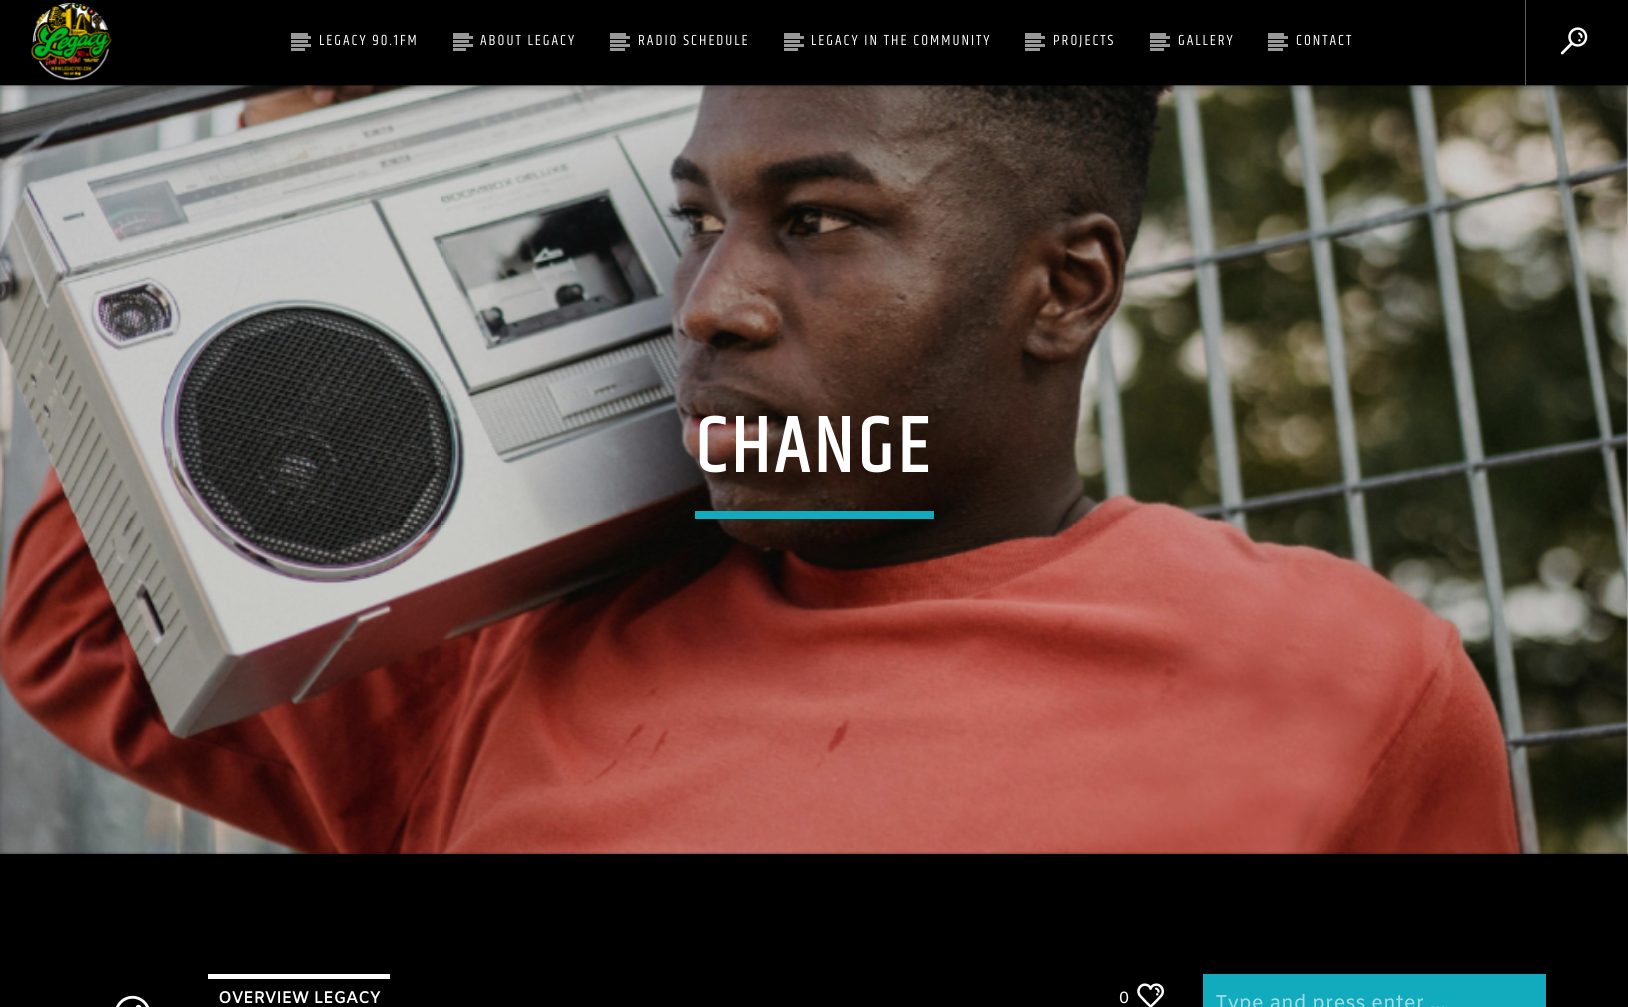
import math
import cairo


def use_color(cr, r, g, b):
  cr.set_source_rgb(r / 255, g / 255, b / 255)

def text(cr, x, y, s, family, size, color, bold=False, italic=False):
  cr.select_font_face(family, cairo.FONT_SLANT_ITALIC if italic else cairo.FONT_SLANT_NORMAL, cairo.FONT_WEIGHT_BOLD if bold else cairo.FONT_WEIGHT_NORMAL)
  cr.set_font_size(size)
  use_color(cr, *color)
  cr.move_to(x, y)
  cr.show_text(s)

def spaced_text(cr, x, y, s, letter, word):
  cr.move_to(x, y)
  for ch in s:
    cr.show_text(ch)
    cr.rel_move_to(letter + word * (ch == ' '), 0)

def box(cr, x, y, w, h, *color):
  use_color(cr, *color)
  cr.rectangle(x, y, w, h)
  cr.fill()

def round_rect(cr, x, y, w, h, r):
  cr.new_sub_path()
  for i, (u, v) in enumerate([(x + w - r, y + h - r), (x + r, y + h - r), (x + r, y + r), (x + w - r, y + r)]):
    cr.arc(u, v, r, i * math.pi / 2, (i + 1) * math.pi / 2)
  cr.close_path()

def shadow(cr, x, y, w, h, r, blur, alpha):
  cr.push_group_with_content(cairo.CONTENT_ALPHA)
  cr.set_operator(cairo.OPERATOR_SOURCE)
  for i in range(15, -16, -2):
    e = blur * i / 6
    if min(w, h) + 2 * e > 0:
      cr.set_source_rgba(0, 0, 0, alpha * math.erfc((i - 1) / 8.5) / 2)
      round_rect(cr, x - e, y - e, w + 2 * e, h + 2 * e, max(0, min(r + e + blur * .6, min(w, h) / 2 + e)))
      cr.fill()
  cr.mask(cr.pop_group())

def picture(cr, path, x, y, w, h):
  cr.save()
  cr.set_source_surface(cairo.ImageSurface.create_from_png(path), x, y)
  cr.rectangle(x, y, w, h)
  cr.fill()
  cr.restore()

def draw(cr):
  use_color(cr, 0, 0, 0)
  cr.paint()
  picture(cr, "img_03.png", 0, 85, 1628, 769)
  shadow(cr, -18, 3, 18, 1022, 0, 6, 0.12)
  shadow(cr, -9, 3, 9, 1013, 0, 3, 0.16)
  cr.save()
  cr.rectangle(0, 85, 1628, 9)
  cr.clip()
  shadow(cr, 0, 3, 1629, 85, 0, 6, 0.12)
  cr.restore()
  cr.save()
  cr.rectangle(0, 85, 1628, 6)
  cr.clip()
  shadow(cr, 0, 3, 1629, 85, 0, 3, 0.16)
  cr.restore()
  picture(cr, "img_01.png", 31, 2, 81, 79)
  box(cr, 291, 33, 17, 3, 153, 153, 153)
  box(cr, 291, 40, 17, 3, 153, 153, 153)
  box(cr, 291, 36, 20, 3, 153, 153, 153)
  box(cr, 291, 44, 20, 3, 153, 153, 153)
  box(cr, 291, 48, 14, 3, 153, 153, 153)
  box(cr, 453, 33, 16, 3, 153, 153, 153)
  box(cr, 453, 40, 16, 3, 153, 153, 153)
  box(cr, 453, 36, 20, 3, 153, 153, 153)
  box(cr, 453, 44, 20, 3, 153, 153, 153)
  box(cr, 453, 48, 13, 3, 153, 153, 153)
  box(cr, 610, 33, 16, 3, 153, 153, 153)
  box(cr, 610, 40, 16, 3, 153, 153, 153)
  box(cr, 610, 36, 20, 3, 153, 153, 153)
  box(cr, 610, 44, 20, 3, 153, 153, 153)
  box(cr, 610, 48, 15, 3, 153, 153, 153)
  box(cr, 784, 33, 16, 3, 153, 153, 153)
  box(cr, 784, 40, 16, 3, 153, 153, 153)
  box(cr, 784, 36, 20, 3, 153, 153, 153)
  box(cr, 784, 44, 20, 3, 153, 153, 153)
  box(cr, 784, 48, 14, 3, 153, 153, 153)
  box(cr, 1025, 33, 16, 3, 153, 153, 153)
  box(cr, 1025, 40, 16, 3, 153, 153, 153)
  box(cr, 1025, 36, 20, 3, 153, 153, 153)
  box(cr, 1025, 44, 20, 3, 153, 153, 153)
  box(cr, 1025, 48, 15, 3, 153, 153, 153)
  box(cr, 1150, 33, 16, 3, 153, 153, 153)
  box(cr, 1150, 40, 16, 3, 153, 153, 153)
  box(cr, 1150, 36, 20, 3, 153, 153, 153)
  box(cr, 1150, 44, 20, 3, 153, 153, 153)
  box(cr, 1150, 48, 14, 3, 153, 153, 153)
  box(cr, 1268, 33, 16, 3, 153, 153, 153)
  box(cr, 1268, 40, 16, 3, 153, 153, 153)
  box(cr, 1268, 36, 20, 3, 153, 153, 153)
  box(cr, 1268, 44, 20, 3, 153, 153, 153)
  box(cr, 1268, 48, 15, 3, 153, 153, 153)
  box(cr, 1525, 0, 1, 85, 97, 97, 97)
  picture(cr, "img_02.png", 1560, 27, 28, 28)
  box(cr, 695, 511, 239, 8, 17, 171, 189)
  picture(cr, "img_04.png", 116, 995, 33, 12)
  box(cr, 208, 974, 182, 5, 255, 255, 255)
  picture(cr, "img_05.png", 1137, 983, 28, 24)
  box(cr, 1203, 974, 343, 33, 17, 171, 189)
  cr.select_font_face("Khand")
  cr.set_font_size(15)
  use_color(cr, 255, 255, 255)
  spaced_text(cr, 319, 45, "LEGACY 90.1FM", 2, 0)
  spaced_text(cr, 480, 45, "ABOUT LEGACY", 2, 0)
  spaced_text(cr, 638, 45, "RADIO SCHEDULE", 2, 0)
  spaced_text(cr, 811, 45, "LEGACY IN THE COMMUNITY", 2, 0)
  spaced_text(cr, 1053, 45, "PROJECTS", 2, 0)
  spaced_text(cr, 1178, 45, "GALLERY", 2, 0)
  spaced_text(cr, 1296, 45, "CONTACT", 2, 0)
  cr.select_font_face("Khand", cairo.FONT_SLANT_NORMAL, cairo.FONT_WEIGHT_BOLD)
  cr.set_font_size(80)
  spaced_text(cr, 695, 472, "CHANGE", 4, 0)
  text(cr, 218, 1003, "OVERVIEW LEGACY", "Amiko", 16.25, (255, 255, 255), bold=True)
  text(cr, 1119, 1003, "0", "Amiko", 16.25, (255, 255, 255))
  text(cr, 1215, 1009, "Type and press enter …", "Amiko", 20, (158, 221, 228))


surface = cairo.ImageSurface(cairo.FORMAT_RGB24, 1628, 1007)
cr = cairo.Context(surface)
options = cairo.FontOptions()
options.set_hint_metrics(cairo.HINT_METRICS_OFF)
options.set_hint_style(cairo.HINT_STYLE_NONE)
cr.set_font_options(options)
cr.set_miter_limit(4)
draw(cr)
surface.write_to_png("out.png")
